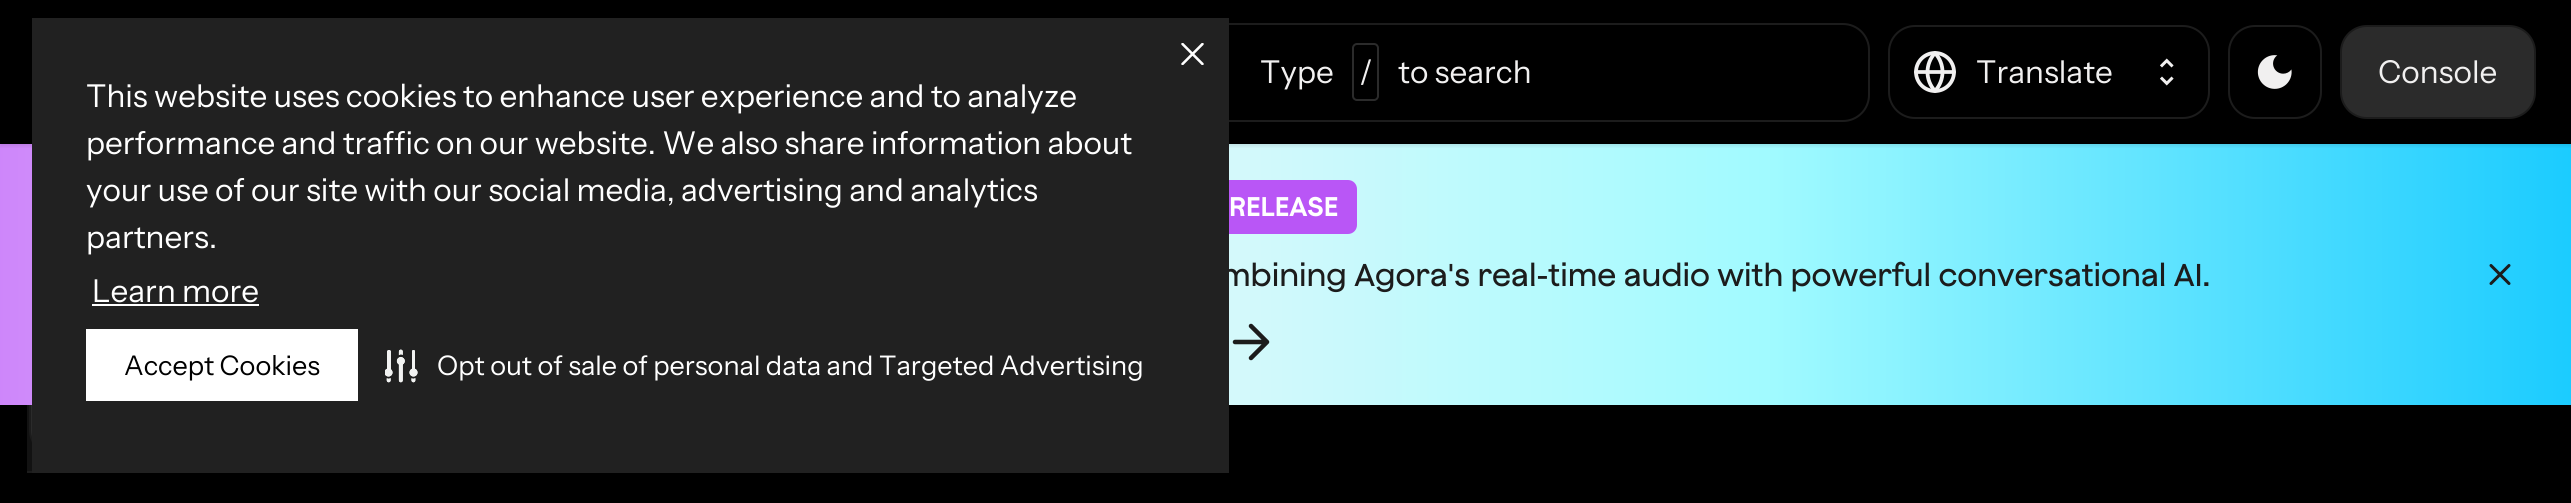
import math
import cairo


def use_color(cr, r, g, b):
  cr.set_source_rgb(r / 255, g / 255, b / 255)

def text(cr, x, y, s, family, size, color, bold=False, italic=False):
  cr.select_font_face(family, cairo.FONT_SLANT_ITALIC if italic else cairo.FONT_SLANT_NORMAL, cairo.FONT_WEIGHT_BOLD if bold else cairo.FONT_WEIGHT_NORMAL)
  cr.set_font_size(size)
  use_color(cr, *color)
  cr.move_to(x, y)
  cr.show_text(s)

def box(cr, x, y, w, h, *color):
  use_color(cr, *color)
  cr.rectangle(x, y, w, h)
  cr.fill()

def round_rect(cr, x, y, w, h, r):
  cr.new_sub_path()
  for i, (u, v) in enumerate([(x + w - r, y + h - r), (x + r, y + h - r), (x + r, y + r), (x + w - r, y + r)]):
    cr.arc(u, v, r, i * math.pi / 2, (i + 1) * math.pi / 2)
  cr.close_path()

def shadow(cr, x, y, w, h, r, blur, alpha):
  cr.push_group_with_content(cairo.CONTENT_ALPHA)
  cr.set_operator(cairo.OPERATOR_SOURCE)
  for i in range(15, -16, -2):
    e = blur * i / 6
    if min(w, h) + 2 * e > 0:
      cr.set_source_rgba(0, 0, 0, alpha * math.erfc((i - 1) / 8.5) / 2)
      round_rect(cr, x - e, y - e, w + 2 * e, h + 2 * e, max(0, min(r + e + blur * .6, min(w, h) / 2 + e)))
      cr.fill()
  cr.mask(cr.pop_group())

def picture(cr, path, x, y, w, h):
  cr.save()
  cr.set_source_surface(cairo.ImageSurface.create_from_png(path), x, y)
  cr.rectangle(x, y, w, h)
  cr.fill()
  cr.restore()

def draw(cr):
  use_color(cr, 0, 0, 0)
  cr.paint()
  box(cr, 27, 405, 5, 66, 18, 18, 18)
  cr.save()
  cr.rectangle(27, 297, 698, 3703)
  cr.clip()
  round_rect(cr, 1, 172, 696, 300, 26)
  use_color(cr, 28, 28, 28)
  cr.stroke()
  cr.restore()
  use_color(cr, 43, 43, 43)
  round_rect(cr, 30, 336, 637, 120, 26)
  cr.fill_preserve()
  use_color(cr, 28, 28, 28)
  cr.stroke()
  gradient = cairo.LinearGradient(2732, 274, -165, 275)
  gradient.add_color_stop_rgba(0, 0, 0.761, 1, 1)
  gradient.add_color_stop_rgba(0.33, 0.627, 0.98, 1, 1)
  gradient.add_color_stop_rgba(0.66, 0.988, 0.976, 0.973, 1)
  gradient.add_color_stop_rgba(1, 0.769, 0.435, 0.984, 1)
  cr.set_source(gradient)
  cr.rectangle(0, 144, 2571, 261)
  cr.fill()
  cr.save()
  cr.rectangle(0, 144, 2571, 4)
  cr.clip()
  use_color(cr, 0, 0, 0)
  shadow(cr, 0, 2, 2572, 144, 0, 2, 0.1)
  cr.restore()
  round_rect(cr, 1151, 24, 718, 97, 26)
  use_color(cr, 28, 28, 28)
  cr.stroke()
  round_rect(cr, 1353, 44, 25, 56, 4)
  use_color(cr, 43, 43, 43)
  cr.stroke()
  round_rect(cr, 1889, 26, 320, 92, 26)
  use_color(cr, 28, 28, 28)
  cr.stroke()
  cr.arc(1935, 72, 19, 0, 2 * math.pi)
  use_color(cr, 241, 240, 240)
  cr.set_line_width(3.8)
  cr.stroke()
  cr.new_path()
  cr.move_to(1916, 72)
  cr.line_to(1954, 72)
  cr.move_to(1935, 53)
  cr.curve_to(1945, 64, 1945, 80, 1935, 91)
  cr.curve_to(1925, 80, 1925, 64, 1935, 53)
  cr.close_path()
  cr.set_line_cap(cairo.LINE_CAP_ROUND)
  cr.set_line_join(cairo.LINE_JOIN_ROUND)
  cr.stroke()
  picture(cr, "img_03.png", 2160, 58, 14, 28)
  round_rect(cr, 2229, 26, 92, 92, 26)
  use_color(cr, 28, 28, 28)
  cr.set_line_width(2)
  cr.set_line_cap(cairo.LINE_CAP_BUTT)
  cr.set_line_join(cairo.LINE_JOIN_MITER)
  cr.stroke()
  picture(cr, "img_04.png", 2257, 55, 35, 34)
  use_color(cr, 43, 43, 43)
  round_rect(cr, 2341, 26, 194, 92, 26)
  cr.fill_preserve()
  use_color(cr, 28, 28, 28)
  cr.stroke()
  use_color(cr, 185, 86, 246)
  round_rect(cr, 1143, 180, 214, 54, 9)
  cr.fill()
  cr.new_path()
  cr.move_to(1235, 342)
  cr.line_to(1267, 342)
  cr.move_to(1251, 326)
  cr.line_to(1267, 342)
  cr.line_to(1251, 358)
  use_color(cr, 28, 28, 28)
  cr.set_line_width(4.5)
  cr.set_line_cap(cairo.LINE_CAP_ROUND)
  cr.set_line_join(cairo.LINE_JOIN_ROUND)
  cr.stroke()
  cr.new_path()
  cr.move_to(2509, 265.5)
  cr.line_to(2491, 283.5)
  cr.move_to(2491, 265.5)
  cr.line_to(2509, 283.5)
  cr.set_line_width(3)
  cr.stroke()
  text(cr, 1260, 83, "Type", "Instrument Sans", 31.5, (241, 240, 240))
  text(cr, 1359, 83, "/", "Instrument Sans", 31.5, (241, 240, 240))
  text(cr, 1398, 83, "to search", "Instrument Sans", 31.5, (241, 240, 240))
  text(cr, 1976, 83, "Translate", "Instrument Sans", 31.5, (241, 240, 240))
  text(cr, 2378, 83, "Console", "Instrument Sans", 31.5, (241, 240, 240))
  text(cr, 1229, 216, "RELEASE", "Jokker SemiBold", 27, (255, 255, 255))
  text(cr, 1221, 286, "mbining Agora's real-time audio with powerful conversational AI.", "Jokker Medium", 31.5, (28, 28, 28))
  box(cr, 32, 18, 1197, 455, 33, 33, 33)
  picture(cr, "img_01.png", 1181, 43, 23, 22)
  picture(cr, "img_02.png", 385, 349, 33, 34)
  text(cr, 92, 302, "Learn more", "Instrument Sans", 31.5, (255, 255, 255))
  box(cr, 92, 304, 167, 2, 255, 255, 255)
  text(cr, 86, 248, "partners.", "Instrument Sans", 31.5, (255, 255, 255))
  text(cr, 86, 201, "your use of our site with our social media, advertising and analytics", "Instrument Sans", 31.5, (255, 255, 255))
  text(cr, 86, 154, "performance and traffic on our website. We also share information about", "Instrument Sans", 31.5, (255, 255, 255))
  text(cr, 86, 107, "This website uses cookies to enhance user experience and to analyze", "Instrument Sans", 31.5, (255, 255, 255))
  text(cr, 437, 375, "Opt out of sale of personal data and Targeted Advertising", "Instrument Sans", 27, (255, 255, 255))
  box(cr, 86, 329, 272, 72, 255, 255, 255)
  text(cr, 124, 375, "Accept Cookies", "Instrument Sans", 27, (0, 0, 0))


surface = cairo.ImageSurface(cairo.FORMAT_RGB24, 2571, 503)
cr = cairo.Context(surface)
options = cairo.FontOptions()
options.set_hint_metrics(cairo.HINT_METRICS_OFF)
options.set_hint_style(cairo.HINT_STYLE_NONE)
cr.set_font_options(options)
cr.set_miter_limit(4)
draw(cr)
surface.write_to_png("out.png")
